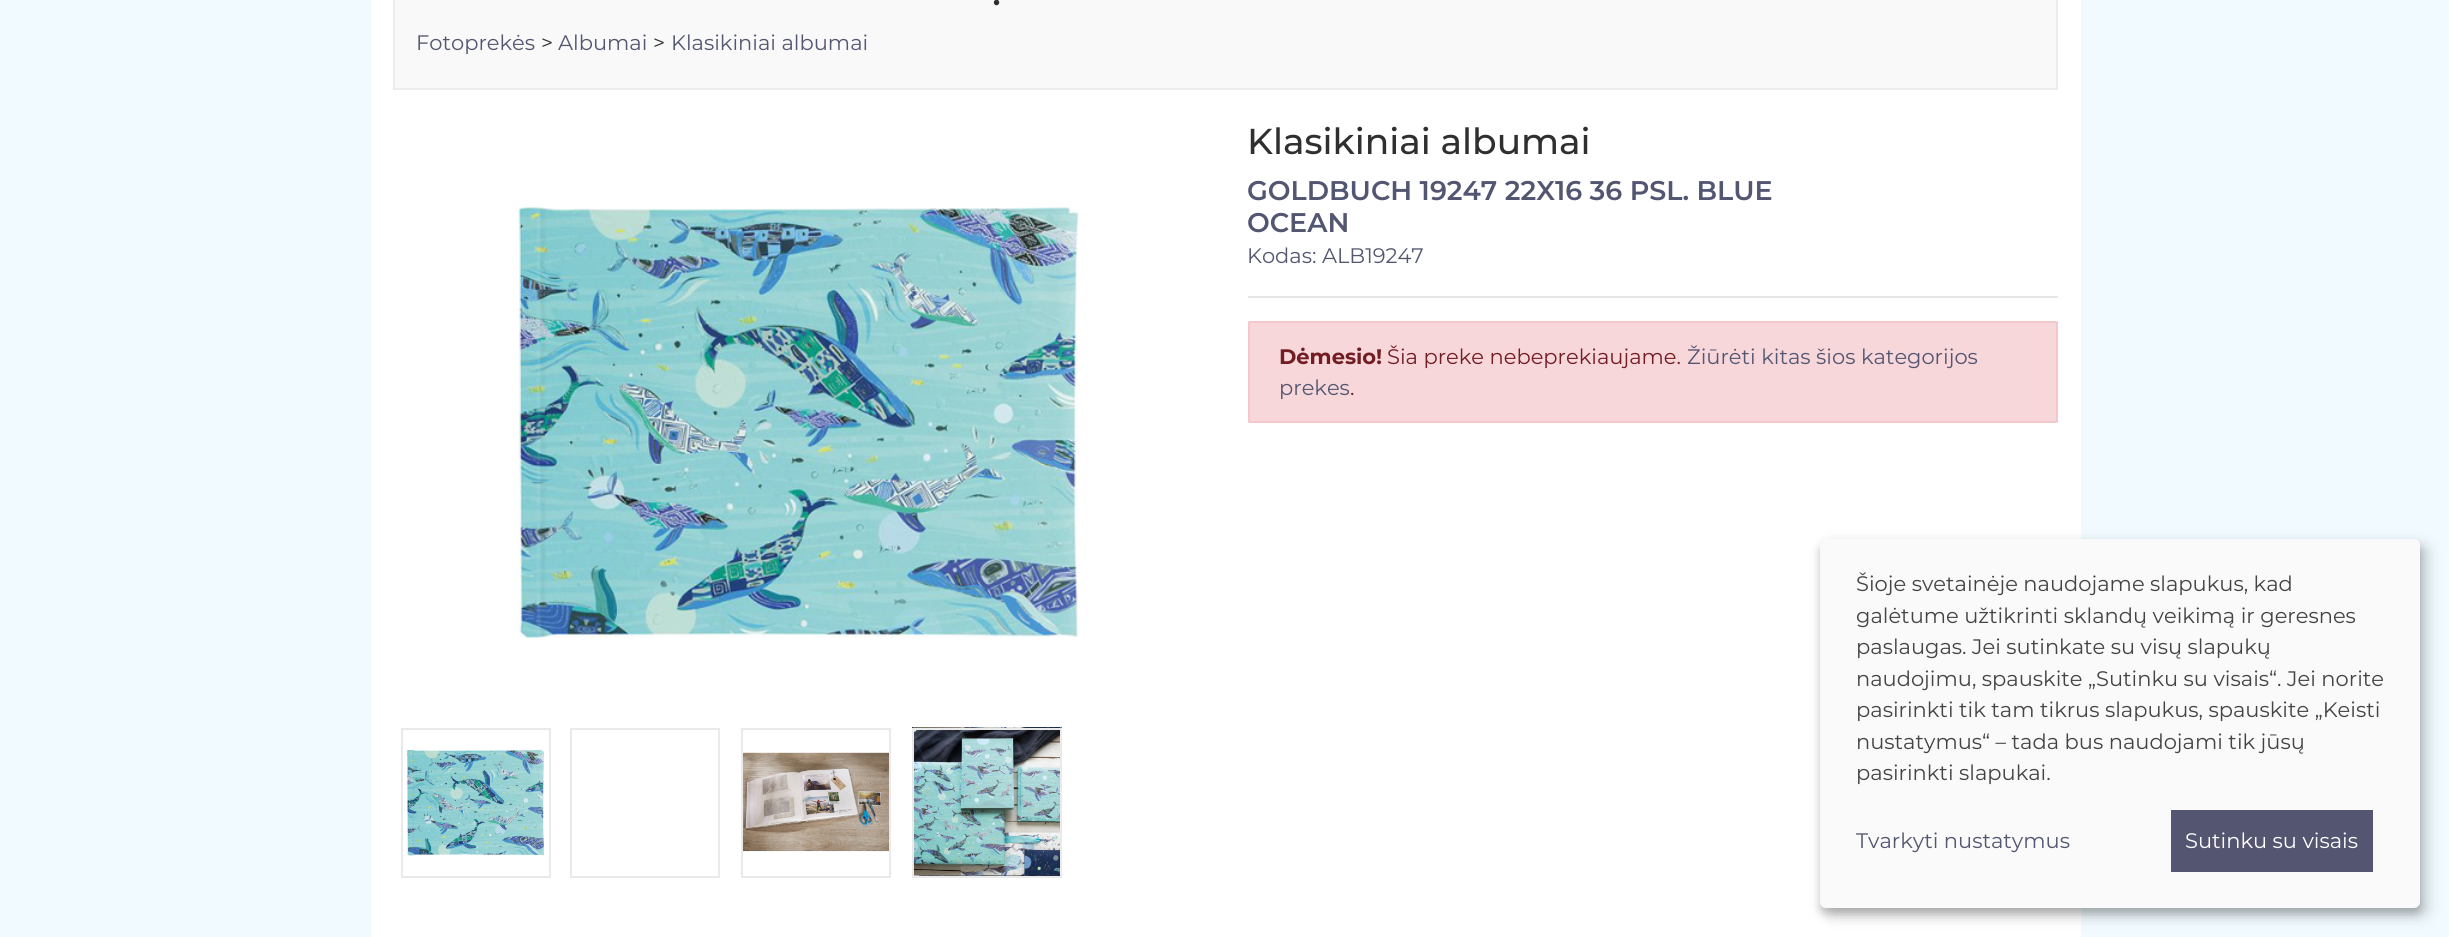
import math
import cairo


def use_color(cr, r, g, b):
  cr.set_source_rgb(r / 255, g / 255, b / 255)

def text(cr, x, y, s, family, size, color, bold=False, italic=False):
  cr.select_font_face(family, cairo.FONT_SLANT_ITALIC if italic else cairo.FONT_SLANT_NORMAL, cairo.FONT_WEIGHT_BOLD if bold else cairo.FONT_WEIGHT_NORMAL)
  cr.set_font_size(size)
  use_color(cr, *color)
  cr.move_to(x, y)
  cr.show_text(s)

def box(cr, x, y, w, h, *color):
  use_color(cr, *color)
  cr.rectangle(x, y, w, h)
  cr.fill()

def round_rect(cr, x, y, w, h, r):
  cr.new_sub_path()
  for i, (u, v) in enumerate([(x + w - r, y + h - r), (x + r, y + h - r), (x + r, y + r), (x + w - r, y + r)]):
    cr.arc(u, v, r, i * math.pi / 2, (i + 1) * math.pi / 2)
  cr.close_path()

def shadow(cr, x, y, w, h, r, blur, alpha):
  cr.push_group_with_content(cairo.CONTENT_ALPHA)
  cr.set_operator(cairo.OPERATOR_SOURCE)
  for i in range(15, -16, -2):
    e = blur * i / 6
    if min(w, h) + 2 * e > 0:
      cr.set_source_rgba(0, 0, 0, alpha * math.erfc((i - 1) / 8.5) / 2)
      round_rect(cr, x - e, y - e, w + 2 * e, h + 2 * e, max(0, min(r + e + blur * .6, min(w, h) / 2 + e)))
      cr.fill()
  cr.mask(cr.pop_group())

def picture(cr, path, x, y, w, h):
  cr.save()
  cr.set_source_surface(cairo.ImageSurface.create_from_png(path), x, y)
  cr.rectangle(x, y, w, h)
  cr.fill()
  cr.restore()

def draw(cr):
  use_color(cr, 240, 250, 255)
  cr.paint()
  box(cr, 371, 0, 1710, 937, 255, 255, 255)
  use_color(cr, 249, 249, 249)
  cr.rectangle(394, -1, 1663, 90)
  cr.fill_preserve()
  use_color(cr, 236, 236, 236)
  cr.stroke()
  picture(cr, "img_01.png", 518, 207, 561, 431)
  picture(cr, "img_02.png", 407, 749, 138, 107)
  cr.rectangle(402, 729, 148, 148)
  use_color(cr, 234, 234, 234)
  cr.stroke()
  cr.rectangle(571, 729, 148, 148)
  cr.stroke()
  picture(cr, "img_03.png", 743, 752, 146, 100)
  cr.rectangle(742, 729, 148, 148)
  cr.stroke()
  picture(cr, "img_04.png", 912, 727, 150, 149)
  cr.rectangle(913, 729, 148, 148)
  cr.stroke()
  box(cr, 1248, 296, 810, 2, 230, 230, 230)
  use_color(cr, 248, 215, 218)
  round_rect(cr, 1249, 322, 808, 100, 0.5)
  cr.fill_preserve()
  use_color(cr, 245, 198, 203)
  cr.stroke()
  use_color(cr, 0, 0, 0)
  shadow(cr, 1827, 546, 600, 369, 6, 7.5, 0.19)
  shadow(cr, 1820, 545, 600, 369, 6, 4.5, 0.2)
  use_color(cr, 250, 250, 250)
  round_rect(cr, 1820, 539, 600, 369, 6)
  cr.fill()
  box(cr, 2171, 810, 202, 62, 84, 86, 113)
  text(cr, 992, 5, ".", "Montserrat Medium", 40, (47, 47, 47))
  text(cr, 416, 50, "Fotoprekės", "Montserrat", 21, (83, 86, 113))
  text(cr, 541, 50, ">", "Montserrat", 21, (47, 47, 47))
  text(cr, 558, 50, "Albumai", "Montserrat", 21, (83, 86, 113))
  text(cr, 653, 50, ">", "Montserrat", 21, (47, 47, 47))
  text(cr, 671, 50, "Klasikiniai albumai", "Montserrat", 21, (83, 86, 113))
  text(cr, 1247, 154, "Klasikiniai albumai", "Montserrat Medium", 36, (47, 47, 47))
  text(cr, 1247, 200, "GOLDBUCH 19247 22X16 36 PSL. BLUE", "Montserrat SemiBold", 27, (83, 86, 113))
  text(cr, 1247, 232, "OCEAN", "Montserrat SemiBold", 27, (83, 86, 113))
  text(cr, 1247, 263, "Kodas: ALB19247", "Montserrat", 21, (83, 86, 113))
  text(cr, 1279, 364, "Dėmesio!", "Montserrat", 21, (114, 28, 36), bold=True)
  text(cr, 1387, 364, "Šia preke nebeprekiaujame.", "Montserrat", 21, (114, 28, 36))
  text(cr, 1687, 364, "Žiūrėti kitas šios kategorijos", "Montserrat", 21, (83, 86, 113))
  text(cr, 1279, 395, "prekes", "Montserrat", 21, (83, 86, 113))
  text(cr, 1350, 395, ".", "Montserrat", 21, (114, 28, 36))
  text(cr, 1856, 591, "Šioje svetainėje naudojame slapukus, kad", "Montserrat", 21, (68, 68, 68))
  text(cr, 1856, 623, "galėtume užtikrinti sklandų veikimą ir geresnes", "Montserrat", 21, (68, 68, 68))
  text(cr, 1856, 654, "paslaugas. Jei sutinkate su visų slapukų", "Montserrat", 21, (68, 68, 68))
  text(cr, 1856, 686, "naudojimu, spauskite „Sutinku su visais“. Jei norite", "Montserrat", 21, (68, 68, 68))
  text(cr, 1856, 717, "pasirinkti tik tam tikrus slapukus, spauskite „Keisti", "Montserrat", 21, (68, 68, 68))
  text(cr, 1856, 749, "nustatymus“ – tada bus naudojami tik jūsų", "Montserrat", 21, (68, 68, 68))
  text(cr, 1856, 780, "pasirinkti slapukai.", "Montserrat", 21, (68, 68, 68))
  text(cr, 1856, 848, "Tvarkyti nustatymus", "Montserrat", 21, (83, 86, 113))
  text(cr, 2185, 848, "Sutinku su visais", "Montserrat", 21, (255, 255, 255))


surface = cairo.ImageSurface(cairo.FORMAT_RGB24, 2449, 937)
cr = cairo.Context(surface)
options = cairo.FontOptions()
options.set_hint_metrics(cairo.HINT_METRICS_OFF)
options.set_hint_style(cairo.HINT_STYLE_NONE)
cr.set_font_options(options)
cr.set_miter_limit(4)
draw(cr)
surface.write_to_png("out.png")
